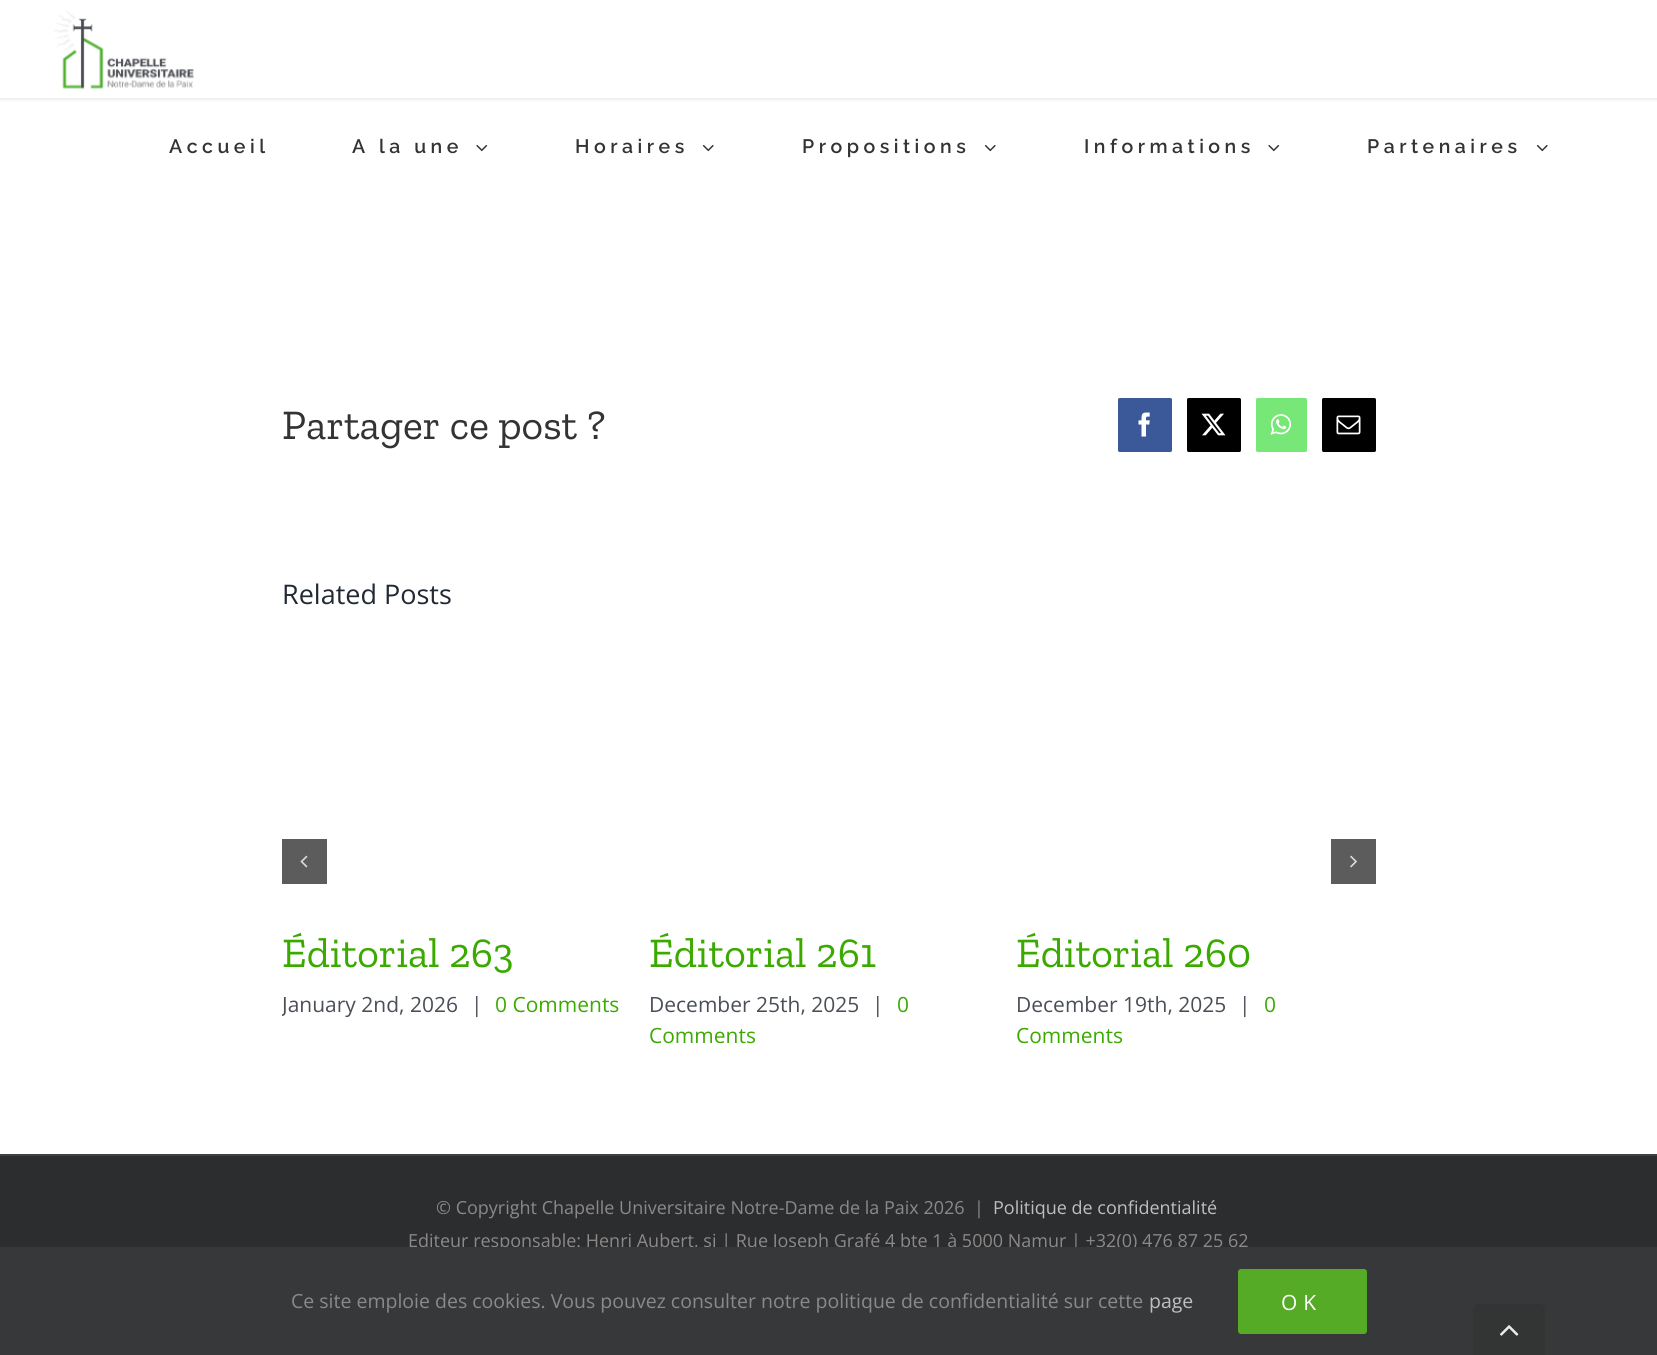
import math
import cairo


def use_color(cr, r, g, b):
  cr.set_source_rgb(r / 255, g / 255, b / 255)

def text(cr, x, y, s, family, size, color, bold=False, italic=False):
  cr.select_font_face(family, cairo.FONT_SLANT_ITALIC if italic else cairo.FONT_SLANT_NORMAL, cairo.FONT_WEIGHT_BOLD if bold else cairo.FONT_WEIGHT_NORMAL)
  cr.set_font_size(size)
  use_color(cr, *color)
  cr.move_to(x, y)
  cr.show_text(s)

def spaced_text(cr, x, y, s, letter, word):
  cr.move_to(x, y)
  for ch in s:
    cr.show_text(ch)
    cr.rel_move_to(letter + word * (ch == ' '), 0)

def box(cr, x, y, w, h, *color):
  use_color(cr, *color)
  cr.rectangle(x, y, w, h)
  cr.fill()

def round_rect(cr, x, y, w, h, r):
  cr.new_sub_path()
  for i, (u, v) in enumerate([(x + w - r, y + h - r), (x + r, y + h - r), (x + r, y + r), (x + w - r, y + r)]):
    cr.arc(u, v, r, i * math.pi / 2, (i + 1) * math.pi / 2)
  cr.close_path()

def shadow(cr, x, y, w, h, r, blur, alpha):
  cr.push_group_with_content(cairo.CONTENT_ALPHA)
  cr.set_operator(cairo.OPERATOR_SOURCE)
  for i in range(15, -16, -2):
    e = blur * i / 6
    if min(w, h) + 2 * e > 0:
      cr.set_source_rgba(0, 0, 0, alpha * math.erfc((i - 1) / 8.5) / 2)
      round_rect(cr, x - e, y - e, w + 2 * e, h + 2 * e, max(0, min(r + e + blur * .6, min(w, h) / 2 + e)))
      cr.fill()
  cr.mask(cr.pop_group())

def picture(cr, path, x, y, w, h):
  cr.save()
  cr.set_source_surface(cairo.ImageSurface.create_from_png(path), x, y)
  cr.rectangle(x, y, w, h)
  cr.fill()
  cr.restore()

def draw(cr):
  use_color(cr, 255, 255, 255)
  cr.paint()
  use_color(cr, 0, 0, 0)
  shadow(cr, 0, 2, 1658, 97, 0, 2, 0.12)
  box(cr, 0, 0, 1657, 98, 255, 255, 255)
  picture(cr, "img_01.png", 53, 10, 141, 80)
  picture(cr, "img_02.png", 476, 144, 12, 8)
  picture(cr, "img_03.png", 702, 144, 12, 8)
  picture(cr, "img_03.png", 984, 144, 12, 8)
  picture(cr, "img_02.png", 1268, 144, 12, 8)
  picture(cr, "img_03.png", 1536, 144, 12, 8)
  use_color(cr, 59, 89, 152)
  round_rect(cr, 1119, 399, 52, 52, 0.5)
  cr.fill_preserve()
  cr.stroke()
  picture(cr, "img_04.png", 1138, 412, 12, 25)
  use_color(cr, 0, 0, 0)
  round_rect(cr, 1188, 399, 52, 52, 0.5)
  cr.fill_preserve()
  cr.stroke()
  picture(cr, "img_05.png", 1201, 413, 25, 23)
  use_color(cr, 119, 232, 120)
  round_rect(cr, 1257, 399, 49, 52, 0.5)
  cr.fill_preserve()
  cr.stroke()
  picture(cr, "img_06.png", 1270, 414, 22, 21)
  use_color(cr, 0, 0, 0)
  round_rect(cr, 1323, 399, 52, 52, 0.5)
  cr.fill_preserve()
  cr.stroke()
  picture(cr, "img_07.png", 1336, 415, 25, 20)
  box(cr, 282, 839, 45, 45, 92, 92, 92)
  picture(cr, "img_08.png", 300, 855, 8, 13)
  box(cr, 1331, 839, 45, 45, 92, 92, 92)
  picture(cr, "img_09.png", 1350, 855, 7, 13)
  box(cr, 0, 1156, 1657, 91, 44, 45, 47)
  box(cr, 0, 1154, 1657, 2, 64, 64, 66)
  cr.select_font_face("Raleway SemiBold")
  cr.set_font_size(19.5)
  use_color(cr, 51, 51, 51)
  spaced_text(cr, 169, 153, "Accueil", 4.5, 0)
  spaced_text(cr, 352, 153, "A la une", 4.5, 0)
  spaced_text(cr, 575, 153, "Horaires", 4.5, 0)
  spaced_text(cr, 802, 153, "Propositions", 4.5, 0)
  spaced_text(cr, 1084, 153, "Informations", 4.5, 0)
  spaced_text(cr, 1367, 153, "Partenaires", 4.5, 0)
  text(cr, 282, 439, "Partager ce post ?", "Zilla Slab", 42, (51, 51, 51))
  text(cr, 282, 604, "Related Posts", "Open Sans", 27, (33, 41, 52))
  text(cr, 282, 967, "Éditorial 263", "Zilla Slab", 42, (59, 170, 0))
  cr.save()
  cr.rectangle(282, 660, 1094, 404)
  cr.clip()
  text(cr, 282, 1012, "January 2nd, 2026", "Open Sans", 21, (74, 78, 87))
  cr.restore()
  text(cr, 471, 1012, "|", "Open Sans", 21, (74, 78, 87))
  text(cr, 495, 1012, "0 Comments", "Open Sans", 21, (59, 170, 0))
  text(cr, 649, 967, "Éditorial 261", "Zilla Slab", 42, (59, 170, 0))
  text(cr, 649, 1012, "December 25th, 2025", "Open Sans", 21, (74, 78, 87))
  text(cr, 872, 1012, "|", "Open Sans", 21, (74, 78, 87))
  text(cr, 897, 1012, "0", "Open Sans", 21, (59, 170, 0))
  text(cr, 649, 1043, "Comments", "Open Sans", 21, (59, 170, 0))
  text(cr, 1016, 967, "Éditorial 260", "Zilla Slab", 42, (59, 170, 0))
  text(cr, 1016, 1012, "December 19th, 2025", "Open Sans", 21, (74, 78, 87))
  text(cr, 1239, 1012, "|", "Open Sans", 21, (74, 78, 87))
  text(cr, 1264, 1012, "0", "Open Sans", 21, (59, 170, 0))
  text(cr, 1016, 1043, "Comments", "Open Sans", 21, (59, 170, 0))
  text(cr, 436, 1214, "© Copyright Chapelle Universitaire Notre-Dame de la Paix 2026  |", "Open Sans", 18, (140, 137, 137))
  text(cr, 993, 1214, "Politique de confidentialité", "Open Sans", 18, (191, 191, 191))
  text(cr, 408, 1247, "Editeur responsable: Henri Aubert, sj | Rue Joseph Grafé 4 bte 1 à 5000 Namur | +32(0) 476 87 25 62", "Open Sans", 18, (140, 137, 137))
  box(cr, 0, 1247, 1657, 108, 54, 56, 57)
  text(cr, 291, 1308, "Ce site emploie des cookies. Vous pouvez consulter notre politique de confidentialité sur cette", "Open Sans", 19.5, (140, 137, 137))
  text(cr, 1149, 1308, "page", "Open Sans", 19.5, (191, 191, 191))
  use_color(cr, 85, 171, 38)
  round_rect(cr, 1238, 1269, 129, 65, 3)
  cr.fill()
  cr.set_font_size(21)
  use_color(cr, 255, 255, 255)
  spaced_text(cr, 1281, 1310, "OK", 6, 0)
  use_color(cr, 51, 52, 52)
  cr.new_path()
  cr.move_to(1479, 1304)
  cr.line_to(1539, 1304)
  cr.curve_to(1542.5, 1304, 1545, 1306.5, 1545, 1310)
  cr.line_to(1545, 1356)
  cr.line_to(1473, 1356)
  cr.line_to(1473, 1310)
  cr.curve_to(1473, 1306.5, 1475.5, 1304, 1479, 1304)
  cr.close_path()
  cr.fill()
  picture(cr, "img_10.png", 1500, 1325, 19, 11)


surface = cairo.ImageSurface(cairo.FORMAT_RGB24, 1657, 1355)
cr = cairo.Context(surface)
options = cairo.FontOptions()
options.set_hint_metrics(cairo.HINT_METRICS_OFF)
options.set_hint_style(cairo.HINT_STYLE_NONE)
cr.set_font_options(options)
cr.set_miter_limit(4)
draw(cr)
surface.write_to_png("out.png")
